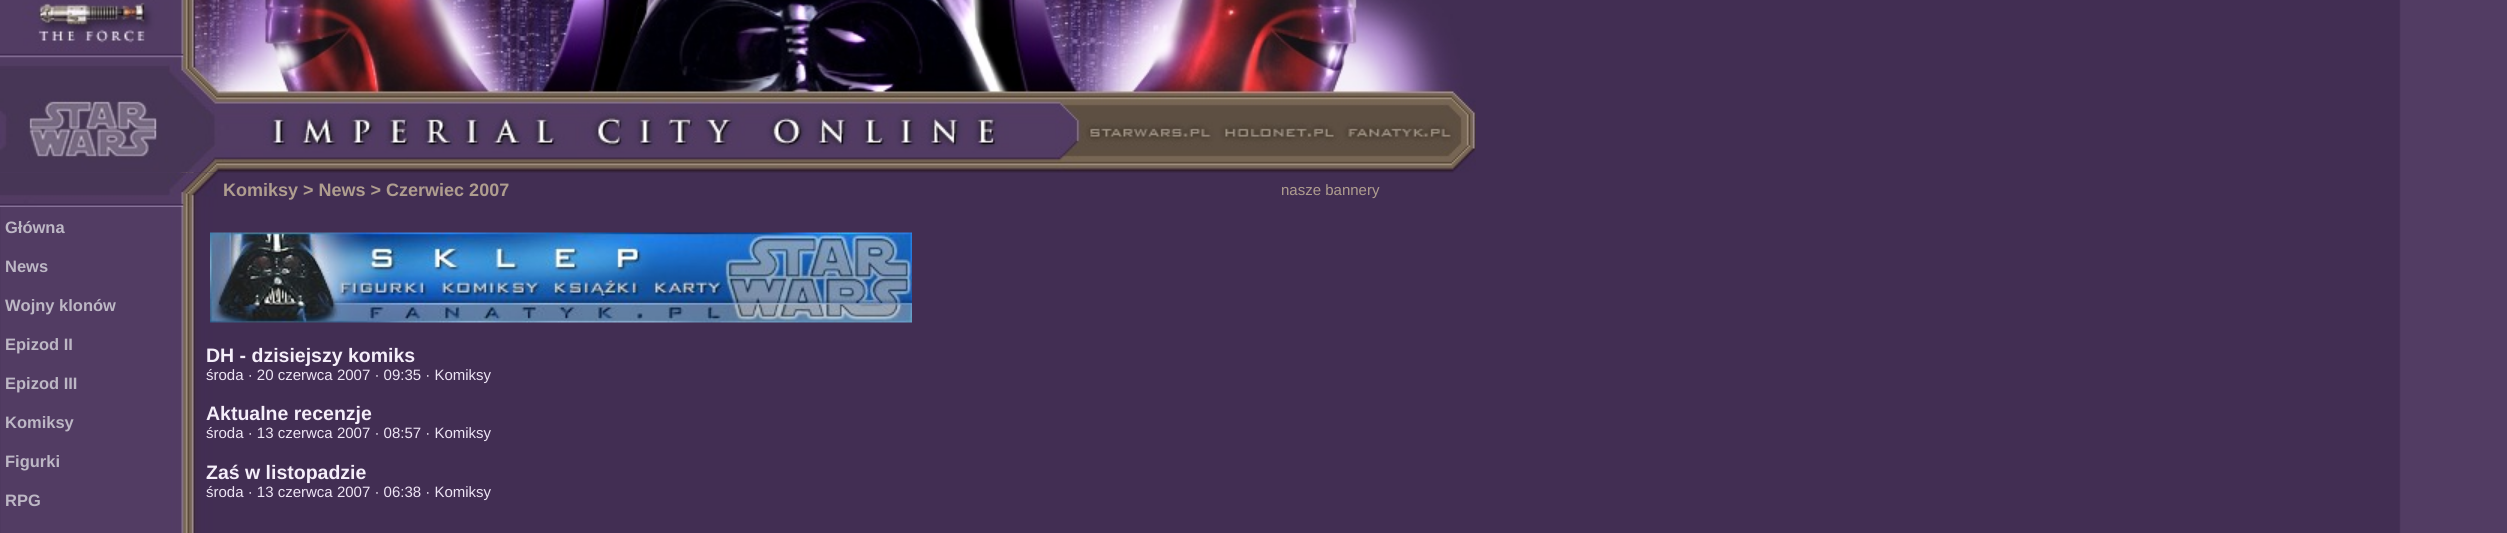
import math
import cairo


def use_color(cr, r, g, b):
  cr.set_source_rgb(r / 255, g / 255, b / 255)

def text(cr, x, y, s, family, size, color, bold=False, italic=False):
  cr.select_font_face(family, cairo.FONT_SLANT_ITALIC if italic else cairo.FONT_SLANT_NORMAL, cairo.FONT_WEIGHT_BOLD if bold else cairo.FONT_WEIGHT_NORMAL)
  cr.set_font_size(size)
  use_color(cr, *color)
  cr.move_to(x, y)
  cr.show_text(s)

def picture(cr, path, x, y, w, h):
  cr.save()
  cr.set_source_surface(cairo.ImageSurface.create_from_png(path), x, y)
  cr.rectangle(x, y, w, h)
  cr.fill()
  cr.restore()

def draw(cr):
  use_color(cr, 255, 255, 255)
  cr.paint()
  picture(cr, "img_01.png", 0, 0, 2507, 533)
  picture(cr, "img_02.png", 0, 0, 1476, 173)
  picture(cr, "img_03.png", 0, 172, 218, 35)
  picture(cr, "img_04.png", 210, 232, 702, 91)
  text(cr, 223, 196, "Komiksy > News > Czerwiec 2007", "Liberation Sans", 18, (175, 157, 143), bold=True)
  text(cr, 1281, 195, "nasze bannery", "Liberation Sans", 15, (175, 157, 143))
  text(cr, 5, 233, "Główna", "Liberation Sans", 16.5, (189, 183, 197), bold=True)
  text(cr, 5, 272, "News", "Liberation Sans", 16.5, (189, 183, 197), bold=True)
  text(cr, 5, 311, "Wojny klonów", "Liberation Sans", 16.5, (189, 183, 197), bold=True)
  text(cr, 5, 350, "Epizod II", "Liberation Sans", 16.5, (189, 183, 197), bold=True)
  text(cr, 5, 389, "Epizod III", "Liberation Sans", 16.5, (189, 183, 197), bold=True)
  text(cr, 5, 428, "Komiksy", "Liberation Sans", 16.5, (189, 183, 197), bold=True)
  text(cr, 5, 467, "Figurki", "Liberation Sans", 16.5, (189, 183, 197), bold=True)
  text(cr, 5, 506, "RPG", "Liberation Sans", 16.5, (189, 183, 197), bold=True)
  text(cr, 206, 362, "DH - dzisiejszy komiks", "Liberation Sans", 19.5, (245, 238, 250), bold=True)
  text(cr, 206, 380, "środa · 20 czerwca 2007 · 09:35 · Komiksy", "Liberation Sans", 15, (238, 229, 245))
  text(cr, 206, 420, "Aktualne recenzje", "Liberation Sans", 19.5, (245, 238, 250), bold=True)
  text(cr, 206, 438, "środa · 13 czerwca 2007 · 08:57 · Komiksy", "Liberation Sans", 15, (238, 229, 245))
  text(cr, 206, 479, "Zaś w listopadzie", "Liberation Sans", 19.5, (245, 238, 250), bold=True)
  text(cr, 206, 497, "środa · 13 czerwca 2007 · 06:38 · Komiksy", "Liberation Sans", 15, (238, 229, 245))


surface = cairo.ImageSurface(cairo.FORMAT_RGB24, 2507, 533)
cr = cairo.Context(surface)
options = cairo.FontOptions()
options.set_hint_metrics(cairo.HINT_METRICS_OFF)
options.set_hint_style(cairo.HINT_STYLE_NONE)
cr.set_font_options(options)
cr.set_miter_limit(4)
draw(cr)
surface.write_to_png("out.png")
